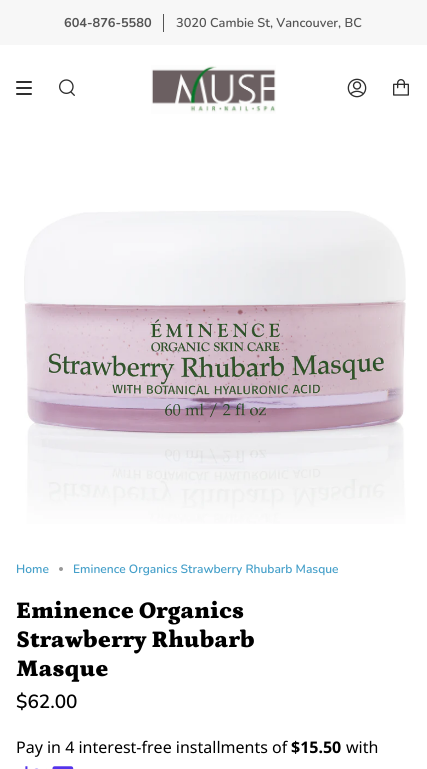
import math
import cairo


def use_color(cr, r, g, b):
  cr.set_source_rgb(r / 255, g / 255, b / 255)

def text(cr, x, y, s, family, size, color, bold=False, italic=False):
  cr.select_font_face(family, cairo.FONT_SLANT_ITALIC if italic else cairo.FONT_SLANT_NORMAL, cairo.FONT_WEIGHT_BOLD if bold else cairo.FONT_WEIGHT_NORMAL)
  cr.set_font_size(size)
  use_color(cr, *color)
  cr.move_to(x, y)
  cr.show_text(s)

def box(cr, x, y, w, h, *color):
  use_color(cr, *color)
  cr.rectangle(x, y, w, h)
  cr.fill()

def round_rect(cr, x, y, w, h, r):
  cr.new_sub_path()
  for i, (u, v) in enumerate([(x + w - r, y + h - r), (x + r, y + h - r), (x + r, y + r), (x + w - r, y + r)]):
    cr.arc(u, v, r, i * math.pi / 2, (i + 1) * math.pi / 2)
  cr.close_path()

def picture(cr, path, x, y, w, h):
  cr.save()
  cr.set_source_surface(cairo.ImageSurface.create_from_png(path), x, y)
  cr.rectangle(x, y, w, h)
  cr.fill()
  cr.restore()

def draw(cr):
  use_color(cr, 255, 255, 255)
  cr.paint()
  box(cr, 0, 0, 427, 45, 247, 247, 247)
  box(cr, 163, 14, 1, 18, 84, 84, 84)
  use_color(cr, 46, 46, 46)
  round_rect(cr, 16, 81, 16, 2, 1)
  cr.fill()
  round_rect(cr, 16, 87, 16, 2, 1)
  cr.fill()
  round_rect(cr, 16, 93, 16, 2, 1)
  cr.fill()
  picture(cr, "img_01.png", 59, 79, 16, 17)
  picture(cr, "img_02.png", 151, 65, 125, 49)
  picture(cr, "img_03.png", 347, 78, 20, 20)
  picture(cr, "img_04.png", 393, 79, 16, 17)
  picture(cr, "img_05.png", 24, 210, 382, 314)
  use_color(cr, 153, 153, 153)
  cr.arc(61, 569, 2, 0, 2 * math.pi)
  cr.fill()
  picture(cr, "img_06.png", 25, 766, 49, 3)
  text(cr, 64, 27, "604-876-5580", "Nunito", 12.75, (84, 84, 84), bold=True)
  text(cr, 176, 27, "3020 Cambie St, Vancouver, BC", "Nunito SemiBold", 12.75, (84, 84, 84))
  text(cr, 16, 573, "Home", "Nunito SemiBold", 12, (68, 159, 201))
  text(cr, 73, 573, "Eminence Organics Strawberry Rhubarb Masque", "Nunito SemiBold", 12, (68, 159, 201))
  text(cr, 16, 618, "Eminence Organics", "Petrona Black", 24, (0, 0, 0))
  text(cr, 16, 647, "Strawberry Rhubarb", "Petrona Black", 24, (0, 0, 0))
  text(cr, 16, 676, "Masque", "Petrona Black", 24, (0, 0, 0))
  text(cr, 16, 708, "$62.00", "Nunito SemiBold", 19, (0, 0, 0))
  text(cr, 16, 753, "Pay in 4 interest-free installments of", "Noto Sans", 16, (0, 0, 0))
  text(cr, 291, 753, "$15.50", "Noto Sans", 16, (0, 0, 0), bold=True)
  text(cr, 346, 753, "with", "Noto Sans", 16, (0, 0, 0))


surface = cairo.ImageSurface(cairo.FORMAT_RGB24, 427, 769)
cr = cairo.Context(surface)
options = cairo.FontOptions()
options.set_hint_metrics(cairo.HINT_METRICS_OFF)
options.set_hint_style(cairo.HINT_STYLE_NONE)
cr.set_font_options(options)
cr.set_miter_limit(4)
draw(cr)
surface.write_to_png("out.png")
